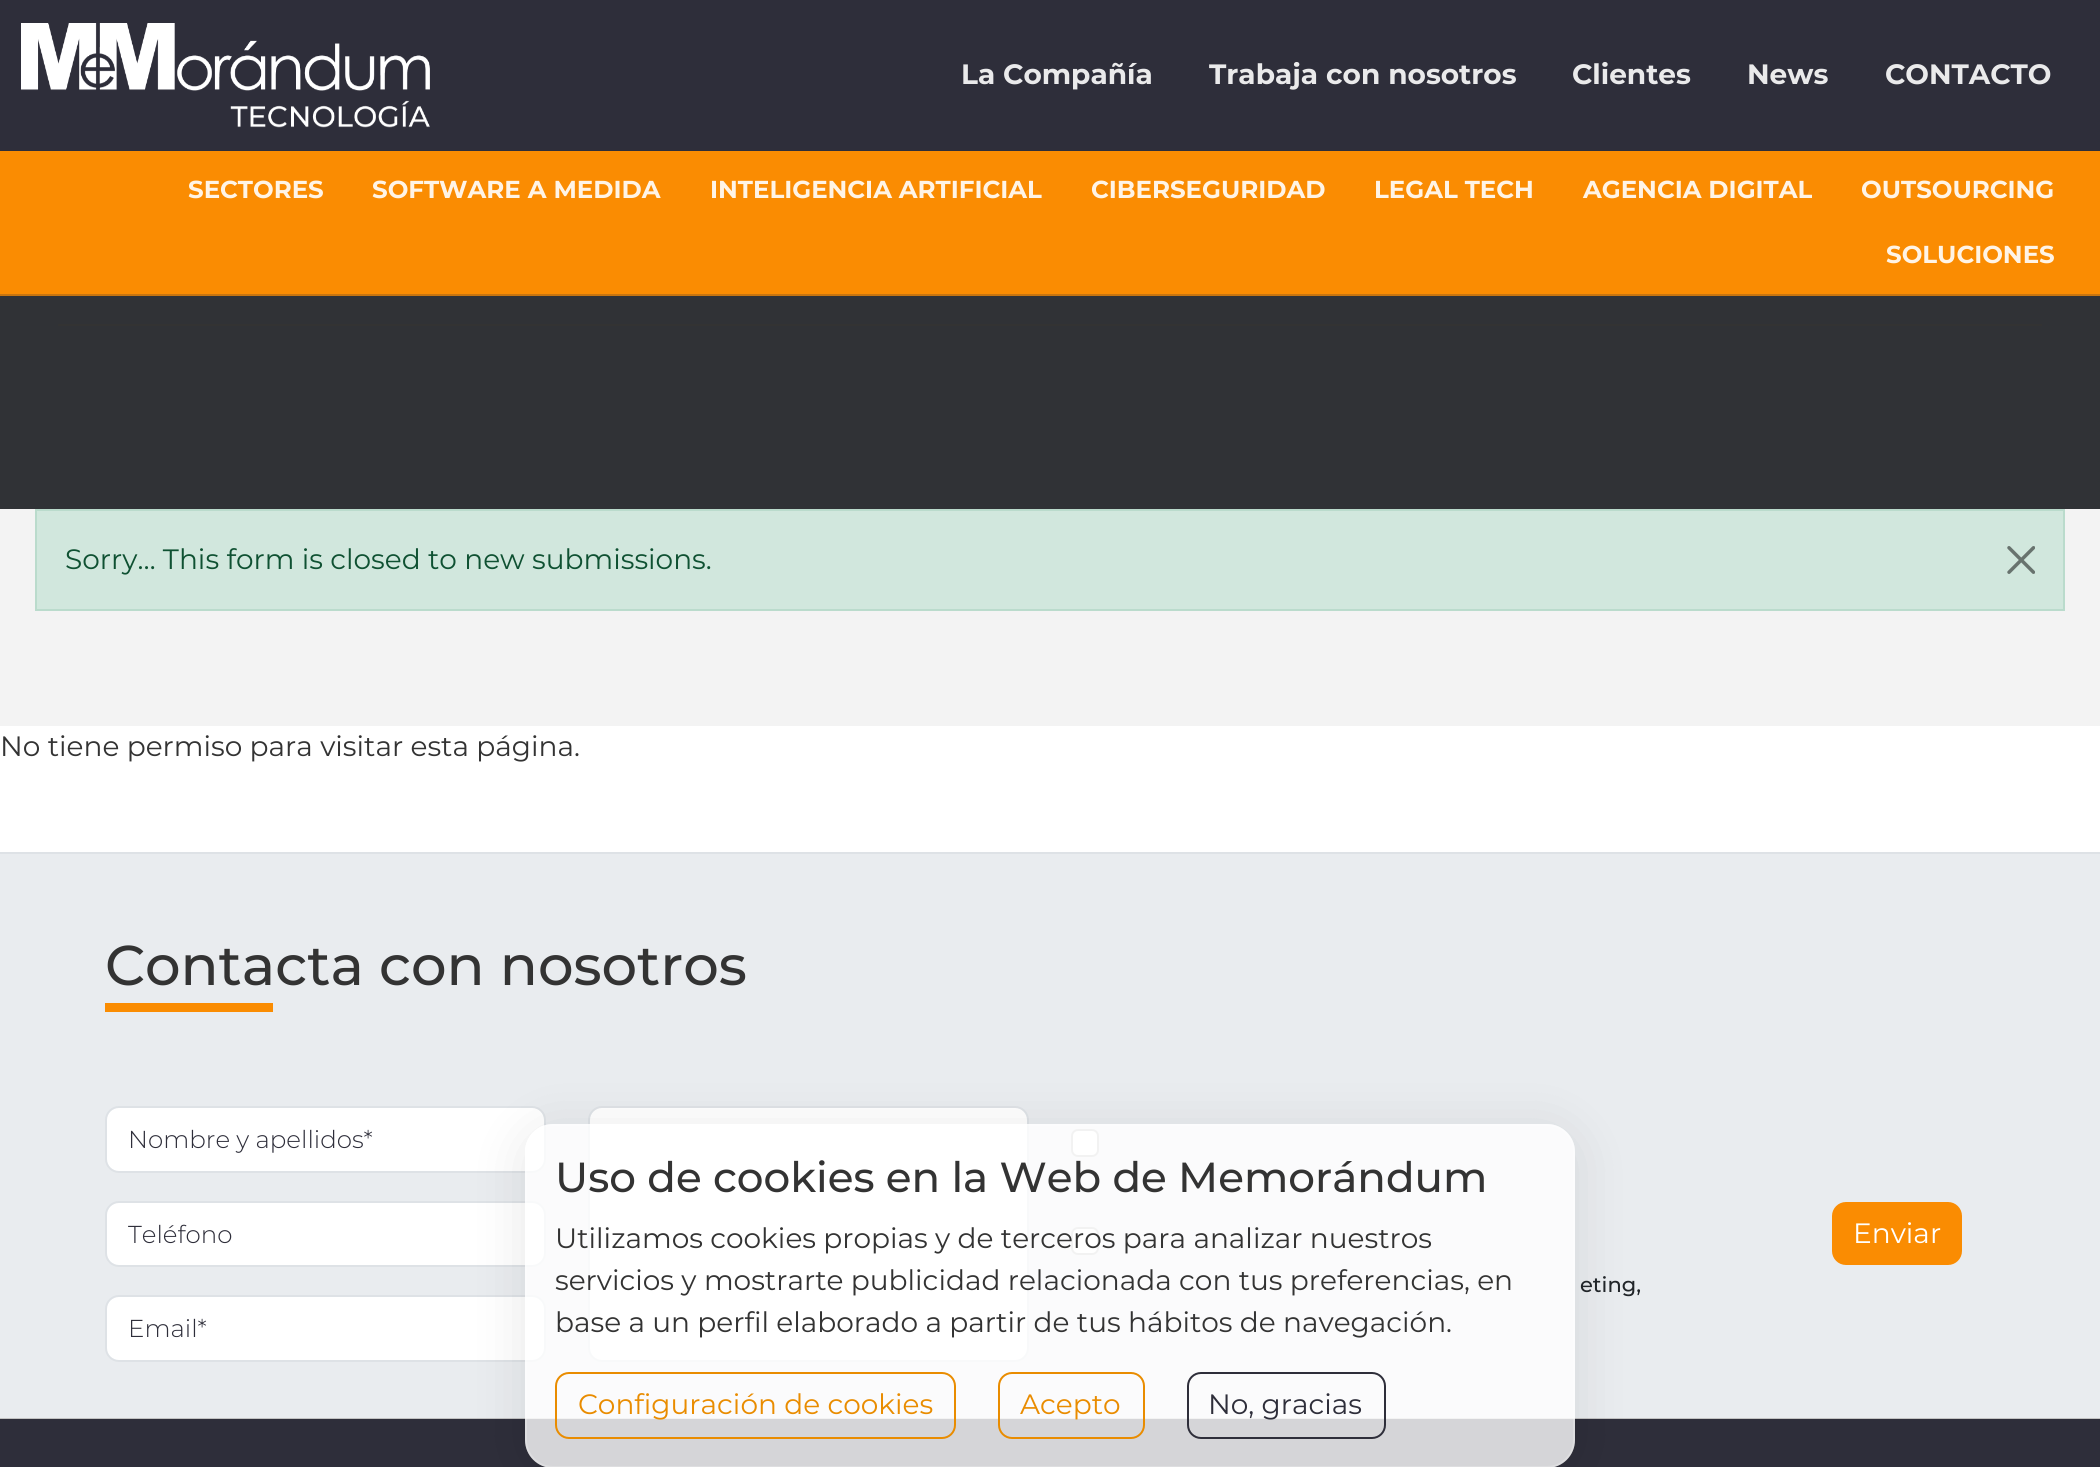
import math
import cairo


def use_color(cr, r, g, b):
  cr.set_source_rgb(r / 255, g / 255, b / 255)

def text(cr, x, y, s, family, size, color, bold=False, italic=False):
  cr.select_font_face(family, cairo.FONT_SLANT_ITALIC if italic else cairo.FONT_SLANT_NORMAL, cairo.FONT_WEIGHT_BOLD if bold else cairo.FONT_WEIGHT_NORMAL)
  cr.set_font_size(size)
  use_color(cr, *color)
  cr.move_to(x, y)
  cr.show_text(s)

def box(cr, x, y, w, h, *color):
  use_color(cr, *color)
  cr.rectangle(x, y, w, h)
  cr.fill()

def round_rect(cr, x, y, w, h, r):
  cr.new_sub_path()
  for i, (u, v) in enumerate([(x + w - r, y + h - r), (x + r, y + h - r), (x + r, y + r), (x + w - r, y + r)]):
    cr.arc(u, v, r, i * math.pi / 2, (i + 1) * math.pi / 2)
  cr.close_path()

def shadow(cr, x, y, w, h, r, blur, alpha):
  cr.push_group_with_content(cairo.CONTENT_ALPHA)
  cr.set_operator(cairo.OPERATOR_SOURCE)
  for i in range(15, -16, -2):
    e = blur * i / 6
    if min(w, h) + 2 * e > 0:
      cr.set_source_rgba(0, 0, 0, alpha * math.erfc((i - 1) / 8.5) / 2)
      round_rect(cr, x - e, y - e, w + 2 * e, h + 2 * e, max(0, min(r + e + blur * .6, min(w, h) / 2 + e)))
      cr.fill()
  cr.mask(cr.pop_group())

def picture(cr, path, x, y, w, h):
  cr.save()
  cr.set_source_surface(cairo.ImageSurface.create_from_png(path), x, y)
  cr.rectangle(x, y, w, h)
  cr.fill()
  cr.restore()

def draw(cr):
  use_color(cr, 255, 255, 255)
  cr.paint()
  box(cr, 0, 0, 2100, 151, 46, 46, 58)
  picture(cr, "img_01.png", 21, 23, 409, 105)
  box(cr, 0, 151, 2100, 143, 250, 140, 2)
  box(cr, 0, 294, 2100, 2, 199, 117, 16)
  box(cr, 0, 296, 2100, 213, 48, 50, 54)
  box(cr, 58, 324, 1984, 2, 51, 51, 51)
  box(cr, 0, 509, 2100, 217, 243, 243, 243)
  use_color(cr, 209, 231, 221)
  cr.rectangle(36, 510, 2028, 100)
  cr.fill_preserve()
  use_color(cr, 186, 219, 204)
  cr.stroke()
  picture(cr, "img_02.png", 2007, 546, 28, 28)
  box(cr, 0, 854, 2100, 564, 233, 236, 239)
  box(cr, 0, 852, 2100, 2, 222, 226, 230)
  box(cr, 0, 1418, 2100, 1, 194, 194, 194)
  box(cr, 105, 1003, 168, 9, 250, 140, 2)
  use_color(cr, 255, 255, 255)
  round_rect(cr, 106, 1107, 439, 65, 13)
  cr.fill_preserve()
  use_color(cr, 222, 226, 230)
  cr.stroke()
  use_color(cr, 255, 255, 255)
  round_rect(cr, 106, 1202, 439, 64, 13)
  cr.fill_preserve()
  use_color(cr, 222, 226, 230)
  cr.stroke()
  use_color(cr, 255, 255, 255)
  round_rect(cr, 106, 1296, 439, 65, 13)
  cr.fill_preserve()
  use_color(cr, 222, 226, 230)
  cr.stroke()
  use_color(cr, 255, 255, 255)
  round_rect(cr, 589, 1107, 439, 254, 13)
  cr.fill_preserve()
  use_color(cr, 222, 226, 230)
  cr.stroke()
  use_color(cr, 250, 140, 2)
  round_rect(cr, 1832, 1202, 130, 63, 14)
  cr.fill()
  use_color(cr, 255, 255, 255)
  round_rect(cr, 1071, 1129, 28, 28, 7)
  cr.fill()
  round_rect(cr, 1072, 1130, 26, 26, 6)
  cr.set_source_rgba(0, 0, 0, 0.25)
  cr.stroke()
  use_color(cr, 255, 255, 255)
  round_rect(cr, 1071, 1227, 28, 28, 7)
  cr.fill()
  round_rect(cr, 1072, 1228, 26, 26, 6)
  cr.set_source_rgba(0, 0, 0, 0.25)
  cr.stroke()
  box(cr, 0, 1419, 2100, 48, 46, 46, 58)
  cr.save()
  cr.set_fill_rule(cairo.FILL_RULE_EVEN_ODD)
  cr.new_path()
  cr.move_to(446, 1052)
  cr.line_to(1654, 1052)
  cr.line_to(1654, 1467)
  cr.line_to(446, 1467)
  cr.close_path()
  cr.move_to(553, 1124)
  cr.line_to(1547, 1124)
  cr.curve_to(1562.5, 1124, 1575, 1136.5, 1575, 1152)
  cr.line_to(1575, 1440)
  cr.curve_to(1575, 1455.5, 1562.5, 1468, 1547, 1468)
  cr.line_to(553, 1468)
  cr.curve_to(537.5, 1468, 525, 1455.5, 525, 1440)
  cr.line_to(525, 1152)
  cr.curve_to(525, 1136.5, 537.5, 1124, 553, 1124)
  cr.close_path()
  cr.clip()
  use_color(cr, 0, 0, 0)
  shadow(cr, 525, 1131, 1050, 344, 28, 26, 0.1)
  cr.restore()
  cr.set_source_rgba(1, 1, 1, 0.8)
  round_rect(cr, 525, 1124, 1050, 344, 28)
  cr.fill()
  round_rect(cr, 526, 1125, 1048, 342, 27)
  cr.set_source_rgba(1, 1, 1, 0.21)
  cr.stroke()
  round_rect(cr, 556, 1373, 399, 65, 13)
  use_color(cr, 233, 140, 0)
  cr.stroke()
  round_rect(cr, 999, 1373, 145, 65, 13)
  cr.stroke()
  round_rect(cr, 1188, 1373, 197, 65, 13)
  use_color(cr, 46, 46, 58)
  cr.stroke()
  text(cr, 961, 84, "La Compañía", "Montserrat", 28, (234, 234, 235), bold=True)
  text(cr, 1209, 84, "Trabaja con nosotros", "Montserrat", 28, (234, 234, 235), bold=True)
  text(cr, 1572, 84, "Clientes", "Montserrat", 28, (234, 234, 235), bold=True)
  text(cr, 1747, 84, "News", "Montserrat", 28, (234, 234, 235), bold=True)
  text(cr, 1885, 84, "CONTACTO", "Montserrat", 28, (234, 234, 235), bold=True)
  text(cr, 188, 198, "SECTORES", "Montserrat", 24.5, (255, 244, 230), bold=True)
  text(cr, 372, 198, "SOFTWARE A MEDIDA", "Montserrat", 24.5, (255, 244, 230), bold=True)
  text(cr, 710, 198, "INTELIGENCIA ARTIFICIAL", "Montserrat", 24.5, (255, 244, 230), bold=True)
  text(cr, 1091, 198, "CIBERSEGURIDAD", "Montserrat", 24.5, (255, 244, 230), bold=True)
  text(cr, 1374, 198, "LEGAL TECH", "Montserrat", 24.5, (255, 244, 230), bold=True)
  text(cr, 1583, 198, "AGENCIA DIGITAL", "Montserrat", 24.5, (255, 244, 230), bold=True)
  text(cr, 1861, 198, "OUTSOURCING", "Montserrat", 24.5, (255, 244, 230), bold=True)
  text(cr, 1886, 263, "SOLUCIONES", "Montserrat", 24.5, (255, 244, 230), bold=True)
  text(cr, 65, 569, "Sorry… This form is closed to new submissions.", "Montserrat", 28, (15, 81, 50))
  text(cr, 0, 756, "No tiene permiso para visitar esta página.", "Montserrat", 28, (51, 51, 51))
  text(cr, 105, 985, "Contacta con nosotros", "Montserrat Medium", 56, (51, 51, 51))
  text(cr, 128, 1148, "Nombre y apellidos*", "Montserrat Light", 24.5, (46, 46, 58))
  text(cr, 128, 1243, "Teléfono", "Montserrat Light", 24.5, (46, 46, 58))
  text(cr, 128, 1337, "Email*", "Montserrat Light", 24.5, (46, 46, 58))
  text(cr, 1853, 1243, "Enviar", "Montserrat", 28, (255, 255, 255))
  text(cr, 1580, 1292, "eting,", "Montserrat Medium", 21, (33, 37, 41))
  text(cr, 555, 1192, "Uso de cookies en la Web de Memorándum", "Montserrat Medium", 42, (51, 51, 51))
  text(cr, 555, 1248, "Utilizamos cookies propias y de terceros para analizar nuestros", "Montserrat", 28, (51, 51, 51))
  text(cr, 555, 1290, "servicios y mostrarte publicidad relacionada con tus preferencias, en", "Montserrat", 28, (51, 51, 51))
  text(cr, 555, 1332, "base a un perfil elaborado a partir de tus hábitos de navegación.", "Montserrat", 28, (51, 51, 51))
  text(cr, 578, 1414, "Configuración de cookies", "Montserrat", 28, (233, 140, 0))
  text(cr, 1020, 1414, "Acepto", "Montserrat", 28, (233, 140, 0))
  text(cr, 1208, 1414, "No, gracias", "Montserrat", 28, (46, 46, 58))


surface = cairo.ImageSurface(cairo.FORMAT_RGB24, 2100, 1467)
cr = cairo.Context(surface)
options = cairo.FontOptions()
options.set_hint_metrics(cairo.HINT_METRICS_OFF)
options.set_hint_style(cairo.HINT_STYLE_NONE)
cr.set_font_options(options)
cr.set_miter_limit(4)
draw(cr)
surface.write_to_png("out.png")
